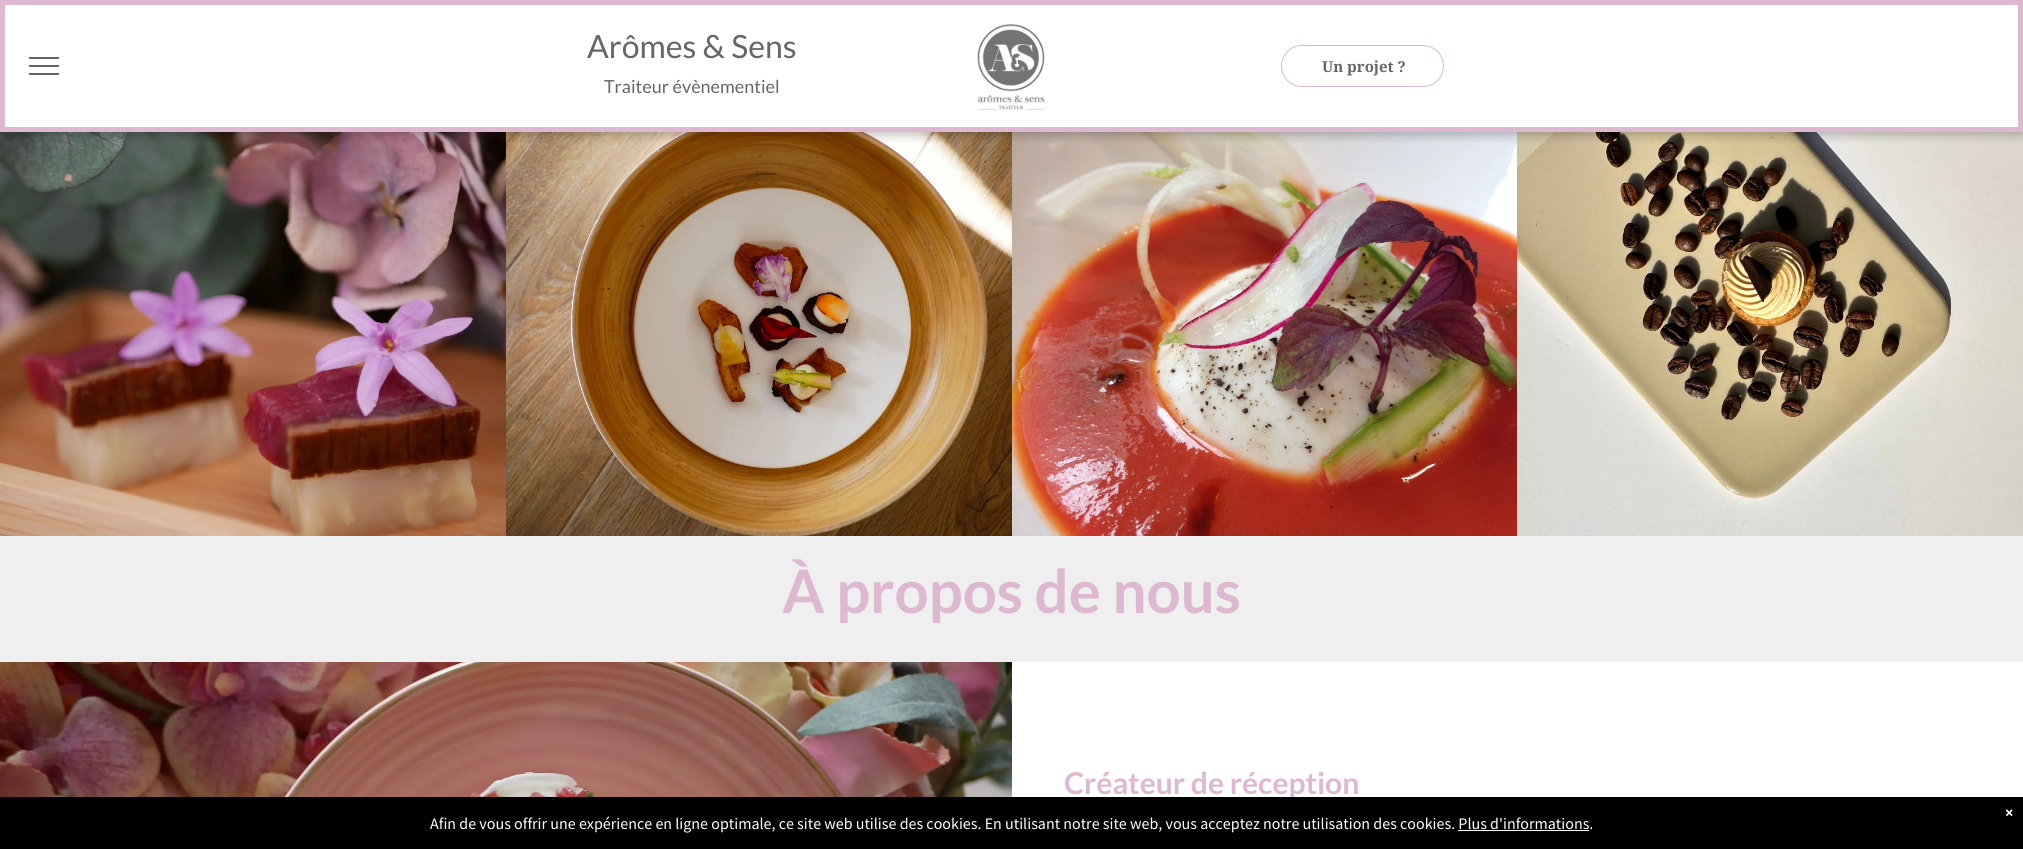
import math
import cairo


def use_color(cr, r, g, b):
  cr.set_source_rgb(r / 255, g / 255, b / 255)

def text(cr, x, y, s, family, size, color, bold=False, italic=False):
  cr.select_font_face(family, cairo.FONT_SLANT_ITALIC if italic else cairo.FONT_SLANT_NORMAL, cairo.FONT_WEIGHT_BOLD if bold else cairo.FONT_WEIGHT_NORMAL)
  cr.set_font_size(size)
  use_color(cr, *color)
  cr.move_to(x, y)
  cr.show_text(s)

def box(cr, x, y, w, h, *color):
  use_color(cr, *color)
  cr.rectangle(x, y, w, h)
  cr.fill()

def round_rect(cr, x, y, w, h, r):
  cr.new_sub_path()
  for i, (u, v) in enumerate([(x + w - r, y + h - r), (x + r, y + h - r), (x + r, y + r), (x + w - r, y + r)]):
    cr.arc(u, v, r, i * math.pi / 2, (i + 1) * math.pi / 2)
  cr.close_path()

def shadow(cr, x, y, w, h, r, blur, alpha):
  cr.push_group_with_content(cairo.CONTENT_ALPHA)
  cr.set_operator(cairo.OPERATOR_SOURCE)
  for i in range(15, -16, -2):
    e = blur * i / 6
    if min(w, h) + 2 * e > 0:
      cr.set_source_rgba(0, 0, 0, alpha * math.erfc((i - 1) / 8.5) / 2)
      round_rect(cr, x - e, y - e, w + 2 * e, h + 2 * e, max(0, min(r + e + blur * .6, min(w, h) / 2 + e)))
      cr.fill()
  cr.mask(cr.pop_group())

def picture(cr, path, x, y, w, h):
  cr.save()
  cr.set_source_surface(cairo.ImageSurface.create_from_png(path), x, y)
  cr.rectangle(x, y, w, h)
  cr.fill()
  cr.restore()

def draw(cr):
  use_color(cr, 255, 255, 255)
  cr.paint()
  picture(cr, "img_01.png", 0, 536, 2023, 126)
  picture(cr, "img_03.png", 0, 132, 506, 404)
  picture(cr, "img_04.png", 506, 132, 506, 404)
  picture(cr, "img_05.png", 1012, 132, 505, 404)
  picture(cr, "img_06.png", 1517, 132, 506, 404)
  cr.save()
  cr.rectangle(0, 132, 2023, 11)
  cr.clip()
  use_color(cr, 0, 0, 0)
  shadow(cr, 0, 3, 2023, 132, 0, 5.5, 0.25)
  cr.restore()
  cr.rectangle(2.5, 2.5, 2018, 127)
  use_color(cr, 221, 184, 208)
  cr.set_line_width(5)
  cr.stroke()
  box(cr, 29, 57, 30, 2, 102, 102, 102)
  box(cr, 29, 65, 30, 2, 102, 102, 102)
  box(cr, 29, 73, 30, 2, 102, 102, 102)
  picture(cr, "img_02.png", 977, 24, 68, 87)
  round_rect(cr, 1281.5, 45.5, 162, 41, 20.5)
  use_color(cr, 221, 184, 208)
  cr.set_line_width(1)
  cr.stroke()
  picture(cr, "img_07.png", 0, 662, 1012, 135)
  text(cr, 587, 58, "Arômes & Sens", "Lato", 32, (102, 102, 102))
  text(cr, 604, 93, "Traiteur évènementiel", "Lato", 18, (102, 102, 102))
  text(cr, 1322, 72, "Un projet ?", "Noto Serif", 15, (102, 102, 102), bold=True)
  text(cr, 782, 613, "À propos de nous", "Lato", 60, (221, 184, 208), bold=True)
  text(cr, 1064, 794, "Créateur de réception", "Lato", 30, (221, 184, 208), bold=True)
  box(cr, 0, 797, 2023, 52, 0, 0, 0)
  text(cr, 2005, 818, "×", "Source Sans Pro", 16, (255, 255, 255), bold=True)
  text(cr, 430, 829, "Afin de vous offrir une expérience en ligne optimale, ce site web utilise des cookies. En utilisant notre site web, vous acceptez notre utilisation des cookies. Plus d'informations.", "Source Sans Pro", 16, (255, 255, 255))
  box(cr, 1458, 830, 131, 1, 255, 255, 255)


surface = cairo.ImageSurface(cairo.FORMAT_RGB24, 2023, 849)
cr = cairo.Context(surface)
options = cairo.FontOptions()
options.set_hint_metrics(cairo.HINT_METRICS_OFF)
options.set_hint_style(cairo.HINT_STYLE_NONE)
cr.set_font_options(options)
cr.set_miter_limit(4)
draw(cr)
surface.write_to_png("out.png")
